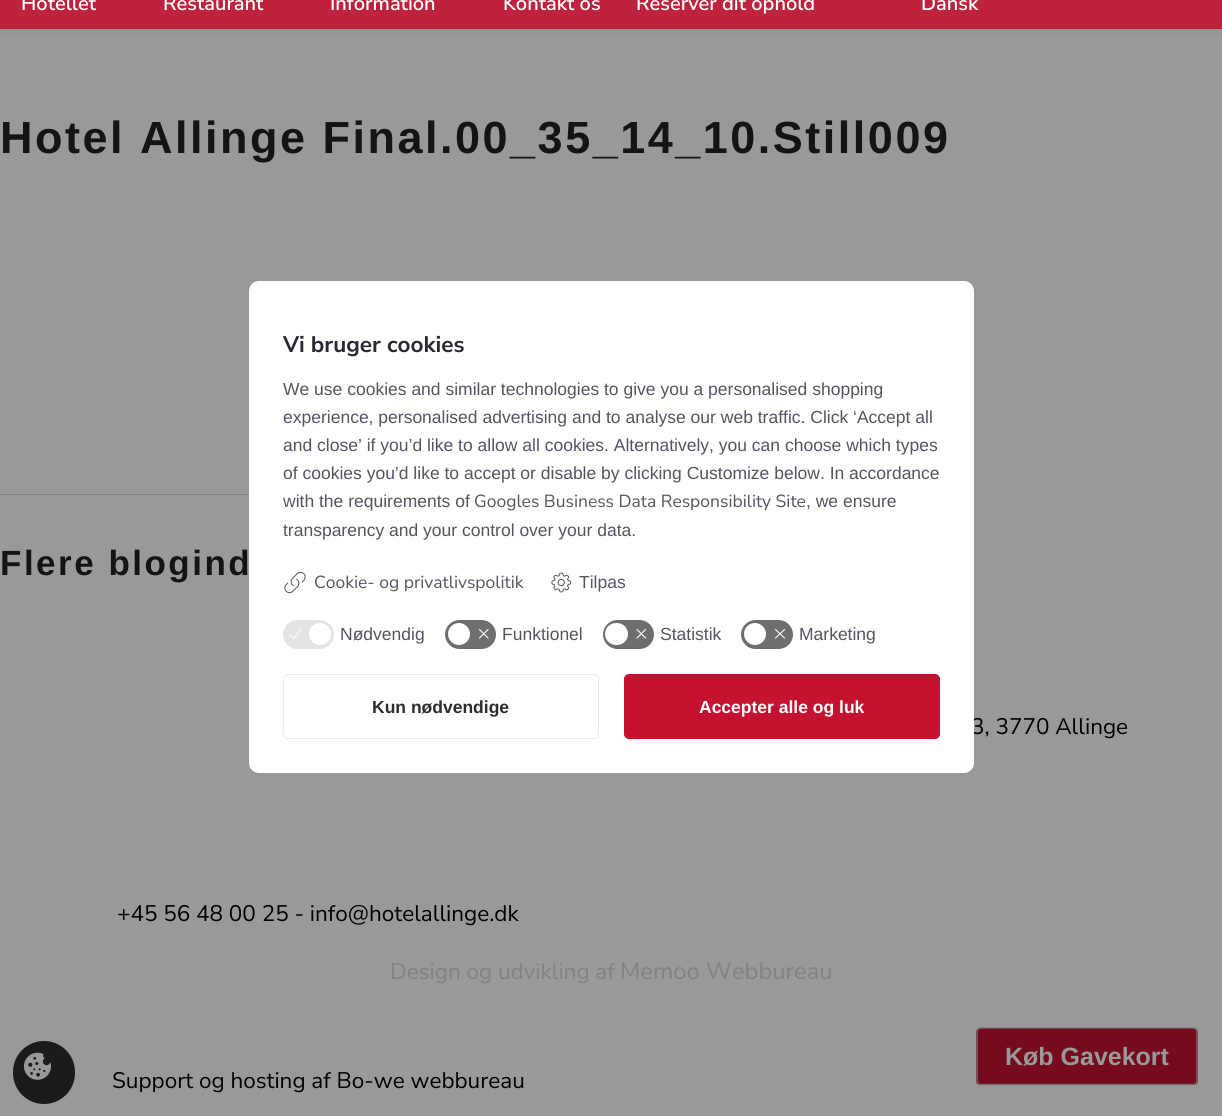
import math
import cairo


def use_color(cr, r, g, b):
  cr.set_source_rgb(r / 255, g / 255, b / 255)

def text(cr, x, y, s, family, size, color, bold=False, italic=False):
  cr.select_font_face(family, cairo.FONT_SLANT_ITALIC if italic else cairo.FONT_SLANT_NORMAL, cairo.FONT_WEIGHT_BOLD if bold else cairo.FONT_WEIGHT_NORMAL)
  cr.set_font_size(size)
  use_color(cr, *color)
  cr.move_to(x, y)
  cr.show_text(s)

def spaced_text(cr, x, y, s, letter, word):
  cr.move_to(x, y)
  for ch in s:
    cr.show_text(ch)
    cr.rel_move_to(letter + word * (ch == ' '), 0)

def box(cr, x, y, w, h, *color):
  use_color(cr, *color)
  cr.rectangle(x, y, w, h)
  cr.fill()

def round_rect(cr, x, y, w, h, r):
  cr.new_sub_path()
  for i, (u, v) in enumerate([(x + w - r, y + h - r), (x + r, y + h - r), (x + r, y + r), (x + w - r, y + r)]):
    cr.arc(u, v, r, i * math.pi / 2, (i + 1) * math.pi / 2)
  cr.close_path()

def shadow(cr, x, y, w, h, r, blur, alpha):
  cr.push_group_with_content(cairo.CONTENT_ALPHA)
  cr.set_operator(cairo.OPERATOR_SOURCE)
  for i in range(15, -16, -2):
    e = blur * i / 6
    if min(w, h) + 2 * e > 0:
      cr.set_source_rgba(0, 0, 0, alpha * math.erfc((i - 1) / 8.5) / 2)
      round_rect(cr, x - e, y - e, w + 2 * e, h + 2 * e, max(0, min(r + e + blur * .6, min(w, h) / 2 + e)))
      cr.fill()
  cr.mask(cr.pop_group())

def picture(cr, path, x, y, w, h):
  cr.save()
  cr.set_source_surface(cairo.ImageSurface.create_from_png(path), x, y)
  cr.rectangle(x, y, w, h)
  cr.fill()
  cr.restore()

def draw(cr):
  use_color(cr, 153, 153, 153)
  cr.paint()
  use_color(cr, 0, 0, 0)
  shadow(cr, 1, -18, 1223, 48, 0, 6, 0.1)
  box(cr, 0, 0, 1222, 29, 191, 34, 61)
  box(cr, 0, 494, 249, 1, 128, 128, 126)
  use_color(cr, 27, 27, 27)
  round_rect(cr, 13, 1041, 62, 63, 31)
  cr.fill()
  picture(cr, "img_03.png", 23, 1052, 29, 28)
  use_color(cr, 118, 11, 29)
  round_rect(cr, 976, 1028, 222, 57, 4)
  cr.fill()
  cr.new_path()
  cr.move_to(1196, 1083.5)
  cr.line_to(1194, 1084.5)
  cr.line_to(980, 1084.5)
  cr.line_to(978, 1083.5)
  use_color(cr, 112, 112, 112)
  cr.set_line_width(1.2)
  cr.stroke()
  cr.new_path()
  cr.move_to(978, 1083.5)
  cr.line_to(977, 1081)
  cr.line_to(977, 1031)
  cr.line_to(978, 1029)
  cr.line_to(980, 1028)
  cr.line_to(1194, 1028)
  cr.line_to(1196, 1029)
  cr.line_to(1197, 1031)
  cr.line_to(1197, 1081)
  cr.line_to(1196, 1083.5)
  use_color(cr, 122, 122, 122)
  cr.stroke()
  text(cr, 21, 10, "Hotellet", "Nunito Sans SemiBold", 20, (255, 255, 255))
  text(cr, 163, 10, "Restaurant", "Nunito Sans SemiBold", 20, (255, 255, 255))
  text(cr, 330, 10, "Information", "Nunito Sans SemiBold", 20, (255, 255, 255))
  text(cr, 503, 10, "Kontakt os", "Nunito Sans SemiBold", 20, (255, 255, 255))
  text(cr, 636, 10, "Reservér dit ophold", "Nunito Sans SemiBold", 20, (255, 255, 255))
  text(cr, 921, 10, "Dansk", "Nunito Sans SemiBold", 20, (255, 255, 255))
  cr.select_font_face("Liberation Sans", cairo.FONT_SLANT_NORMAL, cairo.FONT_WEIGHT_BOLD)
  cr.set_font_size(45)
  use_color(cr, 20, 20, 20)
  spaced_text(cr, 0, 153, "Hotel Allinge Final.00_35_14_10.Still009", 2.5, 0)
  cr.set_font_size(35)
  spaced_text(cr, 0, 575, "Flere blogind", 2.5, 0)
  text(cr, 971, 734, "3, 3770 Allinge", "Nunito Sans", 22.5, (0, 0, 0))
  use_color(cr, 255, 255, 255)
  round_rect(cr, 249, 281, 725, 492, 10)
  cr.fill()
  use_color(cr, 110, 110, 110)
  round_rect(cr, 741, 620, 52, 29, 14.5)
  cr.fill()
  use_color(cr, 255, 255, 255)
  cr.arc(755, 634, 11, 0, 2 * math.pi)
  cr.fill()
  cr.new_path()
  cr.move_to(775.5, 638)
  cr.line_to(784.5, 629.5)
  cr.move_to(775.5, 629.5)
  cr.line_to(784.5, 638)
  cr.set_line_width(1.1)
  cr.set_line_cap(cairo.LINE_CAP_ROUND)
  cr.set_line_join(cairo.LINE_JOIN_ROUND)
  cr.stroke()
  use_color(cr, 110, 110, 110)
  round_rect(cr, 603, 620, 51, 29, 14.5)
  cr.fill()
  use_color(cr, 255, 255, 255)
  round_rect(cr, 605, 623, 23, 22, 11)
  cr.fill()
  cr.new_path()
  cr.move_to(637, 638)
  cr.line_to(645.5, 629.5)
  cr.move_to(637, 629.5)
  cr.line_to(645.5, 638)
  cr.stroke()
  use_color(cr, 110, 110, 110)
  round_rect(cr, 445, 620, 51, 29, 14.5)
  cr.fill()
  use_color(cr, 255, 255, 255)
  cr.arc(459, 634, 11, 0, 2 * math.pi)
  cr.fill()
  cr.new_path()
  cr.move_to(479.5, 638)
  cr.line_to(488, 629.5)
  cr.move_to(479.5, 629.5)
  cr.line_to(488, 638)
  cr.stroke()
  use_color(cr, 228, 228, 228)
  round_rect(cr, 283, 620, 51, 29, 14.5)
  cr.fill()
  use_color(cr, 255, 255, 255)
  cr.arc(320, 634, 11, 0, 2 * math.pi)
  cr.fill()
  cr.new_path()
  cr.move_to(289.5, 634.5)
  cr.line_to(294, 638.5)
  cr.line_to(300.5, 629)
  cr.stroke()
  picture(cr, "img_02.png", 551, 572, 21, 21)
  picture(cr, "img_01.png", 284, 571, 22, 23)
  use_color(cr, 196, 18, 48)
  round_rect(cr, 624.5, 674.5, 315, 64, 4.5)
  cr.fill_preserve()
  cr.set_line_width(1)
  cr.set_line_cap(cairo.LINE_CAP_BUTT)
  cr.set_line_join(cairo.LINE_JOIN_MITER)
  cr.stroke()
  text(cr, 699, 713, "Accepter alle og luk", "Liberation Sans", 17.5, (255, 255, 255), bold=True)
  round_rect(cr, 283.5, 674.5, 315, 64, 4.5)
  use_color(cr, 234, 234, 235)
  cr.stroke()
  text(cr, 372, 713, "Kun nødvendige", "Liberation Sans", 17.5, (45, 45, 45), bold=True)
  text(cr, 799, 640, "Marketing", "Liberation Sans", 17.5, (84, 84, 101))
  text(cr, 660, 640, "Statistik", "Liberation Sans", 17.5, (84, 84, 101))
  text(cr, 502, 640, "Funktionel", "Liberation Sans", 17.5, (84, 84, 101))
  text(cr, 340, 640, "Nødvendig", "Liberation Sans", 17.5, (84, 84, 101))
  text(cr, 579, 588, "Tilpas", "Liberation Sans", 17.5, (84, 84, 101))
  text(cr, 314, 588, "Cookie- og privatlivspolitik", "Nunito Sans", 17.5, (84, 84, 101))
  text(cr, 283, 536, "transparency and your control over your data.", "Liberation Sans", 17.5, (84, 84, 101))
  text(cr, 806, 507, ", we ensure", "Liberation Sans", 17.5, (84, 84, 101))
  text(cr, 474, 507, "Googles Business Data Responsibility Site", "Nunito Sans", 17.5, (84, 84, 101))
  text(cr, 283, 507, "with the requirements of", "Liberation Sans", 17.5, (84, 84, 101))
  text(cr, 283, 479, "of cookies you’d like to accept or disable by clicking Customize below. In accordance", "Liberation Sans", 17.5, (84, 84, 101))
  text(cr, 283, 451, "and close’ if you’d like to allow all cookies. Alternatively, you can choose which types", "Liberation Sans", 17.5, (84, 84, 101))
  text(cr, 283, 423, "experience, personalised advertising and to analyse our web traffic. Click ‘Accept all", "Liberation Sans", 17.5, (84, 84, 101))
  text(cr, 283, 395, "We use cookies and similar technologies to give you a personalised shopping", "Liberation Sans", 17.5, (84, 84, 101))
  text(cr, 283, 352, "Vi bruger cookies", "Nunito Sans", 22.5, (41, 40, 52), bold=True)
  text(cr, 117, 921, "+45 56 48 00 25 - info@hotelallinge.dk", "Nunito Sans", 22.5, (0, 0, 0))
  text(cr, 390, 979, "Design og udvikling af", "Nunito Sans", 22.5, (130, 130, 130))
  text(cr, 620, 979, "Memoo Webbureau", "Nunito Sans", 23.75, (130, 130, 130))
  text(cr, 112, 1088, "Support og hosting af Bo-we webbureau", "Nunito Sans", 22.5, (0, 0, 0))
  text(cr, 1005, 1065, "Køb Gavekort", "Liberation Sans", 25, (153, 153, 153), bold=True)


surface = cairo.ImageSurface(cairo.FORMAT_RGB24, 1222, 1116)
cr = cairo.Context(surface)
options = cairo.FontOptions()
options.set_hint_metrics(cairo.HINT_METRICS_OFF)
options.set_hint_style(cairo.HINT_STYLE_NONE)
cr.set_font_options(options)
cr.set_miter_limit(4)
draw(cr)
surface.write_to_png("out.png")
